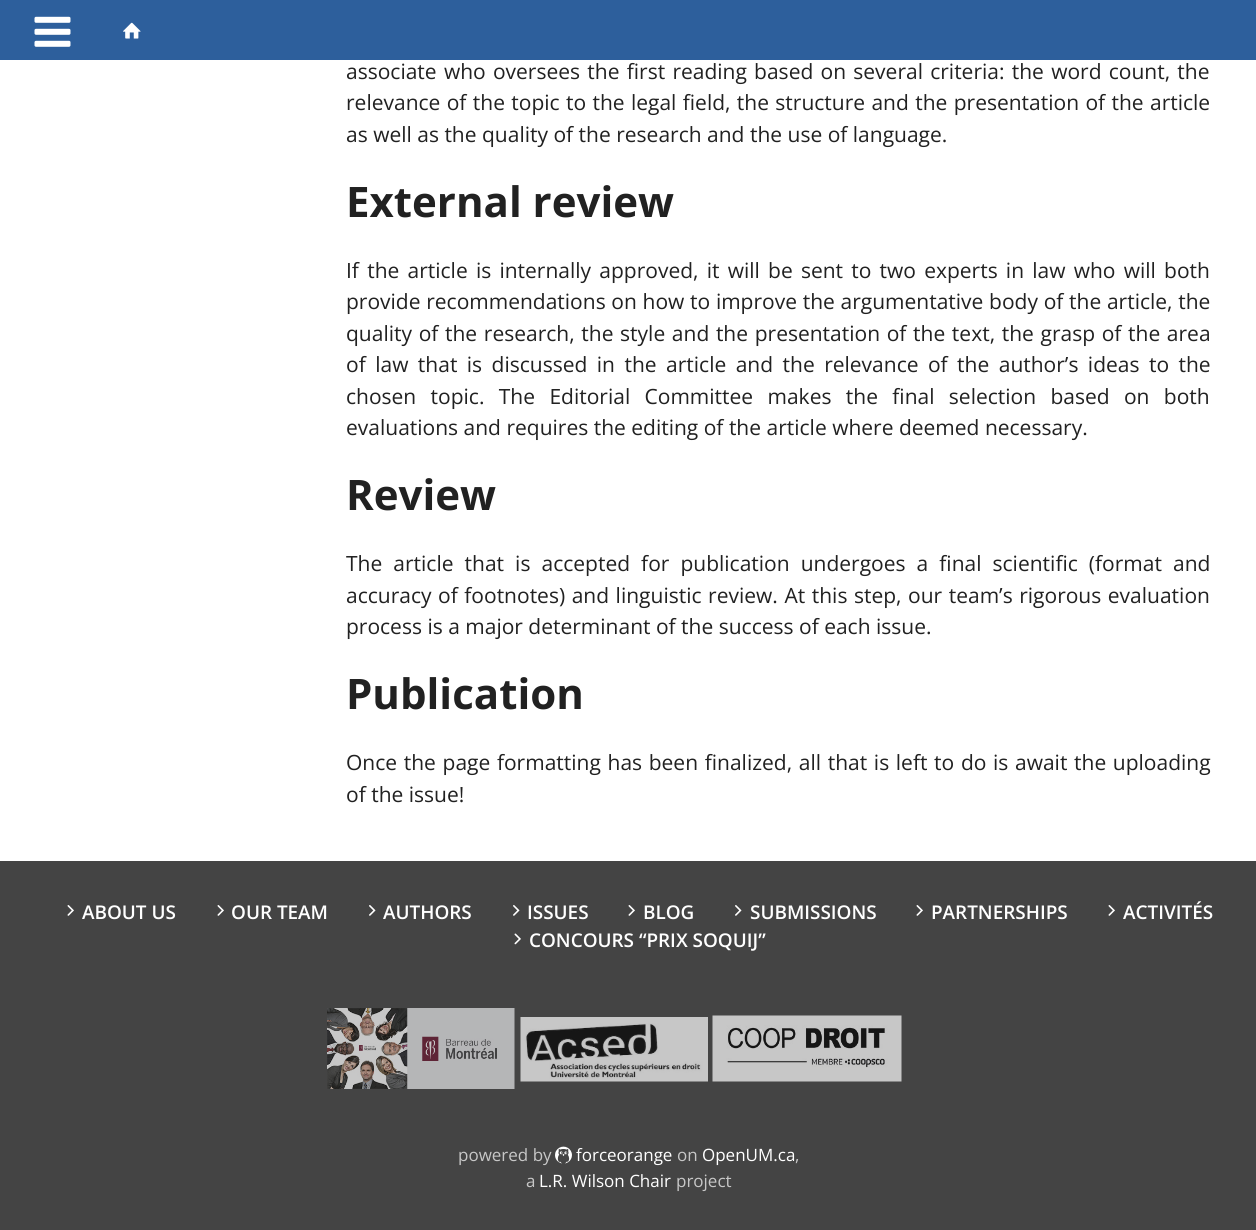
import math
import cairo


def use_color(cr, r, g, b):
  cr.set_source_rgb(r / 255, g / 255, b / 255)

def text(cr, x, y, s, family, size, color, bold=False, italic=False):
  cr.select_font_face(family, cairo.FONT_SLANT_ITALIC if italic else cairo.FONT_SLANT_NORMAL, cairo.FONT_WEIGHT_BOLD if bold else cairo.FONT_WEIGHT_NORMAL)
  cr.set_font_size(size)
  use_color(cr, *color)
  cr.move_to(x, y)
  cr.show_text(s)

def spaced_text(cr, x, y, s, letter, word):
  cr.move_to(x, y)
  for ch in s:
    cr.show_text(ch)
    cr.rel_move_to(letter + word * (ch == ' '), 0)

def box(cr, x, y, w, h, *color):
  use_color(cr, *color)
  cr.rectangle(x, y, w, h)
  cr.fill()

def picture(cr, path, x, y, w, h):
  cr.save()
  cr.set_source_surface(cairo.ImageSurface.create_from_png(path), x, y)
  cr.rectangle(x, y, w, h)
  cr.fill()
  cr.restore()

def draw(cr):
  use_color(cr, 255, 255, 255)
  cr.paint()
  box(cr, 0, 0, 1256, 60, 45, 95, 156)
  picture(cr, "img_01.png", 34, 16, 37, 31)
  picture(cr, "img_02.png", 123, 22, 18, 17)
  box(cr, 0, 861, 1256, 369, 68, 68, 68)
  picture(cr, "img_03.png", 67, 905, 7, 11)
  picture(cr, "img_03.png", 217, 905, 7, 11)
  picture(cr, "img_04.png", 369, 905, 7, 11)
  picture(cr, "img_04.png", 513, 905, 7, 11)
  picture(cr, "img_03.png", 628, 905, 7, 11)
  picture(cr, "img_04.png", 735, 905, 7, 11)
  picture(cr, "img_03.png", 916, 905, 7, 11)
  picture(cr, "img_03.png", 1108, 905, 7, 11)
  picture(cr, "img_05.png", 514, 933, 7, 12)
  picture(cr, "img_06.png", 327, 1008, 188, 81)
  picture(cr, "img_07.png", 520, 1017, 188, 65)
  picture(cr, "img_08.png", 712, 1015, 190, 67)
  picture(cr, "img_09.png", 555, 1146, 17, 18)
  cr.select_font_face("Open Sans")
  cr.set_font_size(21)
  use_color(cr, 33, 33, 33)
  spaced_text(cr, 346, 79, "associate who oversees the first reading based on several criteria: the word count, the", 0, 1.8)
  spaced_text(cr, 346, 110, "relevance of the topic to the legal field, the structure and the presentation of the article", 0, 0.9)
  text(cr, 346, 142, "as well as the quality of the research and the use of language.", "Open Sans", 21, (33, 33, 33))
  text(cr, 346, 217, "External review", "Open Sans", 42, (33, 33, 33), bold=True)
  cr.select_font_face("Open Sans")
  cr.set_font_size(21)
  spaced_text(cr, 346, 278, "If the article is internally approved, it will be sent to two experts in law who will both", 0, 2.75)
  spaced_text(cr, 346, 309, "provide recommendations on how to improve the argumentative body of the article, the", 0, 0.25)
  spaced_text(cr, 346, 341, "quality of the research, the style and the presentation of the text, the grasp of the area", 0, 1.2)
  spaced_text(cr, 346, 372, "of law that is discussed in the article and the relevance of the author’s ideas to the", 0, 4)
  spaced_text(cr, 346, 404, "chosen topic. The Editorial Committee makes the final selection based on both", 0, 8.9)
  text(cr, 346, 435, "evaluations and requires the editing of the article where deemed necessary.", "Open Sans", 21, (33, 33, 33))
  text(cr, 346, 510, "Review", "Open Sans", 42, (33, 33, 33), bold=True)
  cr.select_font_face("Open Sans")
  cr.set_font_size(21)
  spaced_text(cr, 346, 571, "The article that is accepted for publication undergoes a final scientific (format and", 0, 5.6)
  spaced_text(cr, 346, 603, "accuracy of footnotes) and linguistic review. At this step, our team’s rigorous evaluation", 0, 1.1)
  text(cr, 346, 634, "process is a major determinant of the success of each issue.", "Open Sans", 21, (33, 33, 33))
  text(cr, 346, 709, "Publication", "Open Sans", 42, (33, 33, 33), bold=True)
  cr.select_font_face("Open Sans")
  cr.set_font_size(21)
  spaced_text(cr, 346, 770, "Once the page formatting has been finalized, all that is left to do is await the uploading", 0, 1.2)
  text(cr, 346, 802, "of the issue!", "Open Sans", 21, (33, 33, 33))
  text(cr, 82, 919, "ABOUT US", "Open Sans SemiBold", 18.9, (255, 255, 255))
  text(cr, 231, 919, "OUR TEAM", "Open Sans SemiBold", 18.9, (255, 255, 255))
  text(cr, 383, 919, "AUTHORS", "Open Sans SemiBold", 18.9, (255, 255, 255))
  text(cr, 527, 919, "ISSUES", "Open Sans SemiBold", 18.9, (255, 255, 255))
  text(cr, 643, 919, "BLOG", "Open Sans SemiBold", 18.9, (255, 255, 255))
  text(cr, 750, 919, "SUBMISSIONS", "Open Sans SemiBold", 18.9, (255, 255, 255))
  text(cr, 931, 919, "PARTNERSHIPS", "Open Sans SemiBold", 18.9, (255, 255, 255))
  text(cr, 1123, 919, "ACTIVITÉS", "Open Sans SemiBold", 18.9, (255, 255, 255))
  text(cr, 529, 947, "CONCOURS “PRIX SOQUIJ”", "Open Sans SemiBold", 18.9, (255, 255, 255))
  text(cr, 458, 1161, "powered by", "Open Sans", 17, (199, 199, 199))
  text(cr, 576, 1161, "forceorange", "Open Sans", 17, (255, 255, 255))
  text(cr, 677, 1161, "on", "Open Sans", 17, (199, 199, 199))
  text(cr, 702, 1161, "OpenUM.ca", "Open Sans", 17, (255, 255, 255))
  text(cr, 795, 1161, ",", "Open Sans", 17, (199, 199, 199))
  text(cr, 526, 1187, "a", "Open Sans", 17, (199, 199, 199))
  text(cr, 539, 1187, "L.R. Wilson Chair", "Open Sans", 17, (255, 255, 255))
  text(cr, 676, 1187, "project", "Open Sans", 17, (199, 199, 199))


surface = cairo.ImageSurface(cairo.FORMAT_RGB24, 1256, 1230)
cr = cairo.Context(surface)
options = cairo.FontOptions()
options.set_hint_metrics(cairo.HINT_METRICS_OFF)
options.set_hint_style(cairo.HINT_STYLE_NONE)
cr.set_font_options(options)
cr.set_miter_limit(4)
draw(cr)
surface.write_to_png("out.png")
